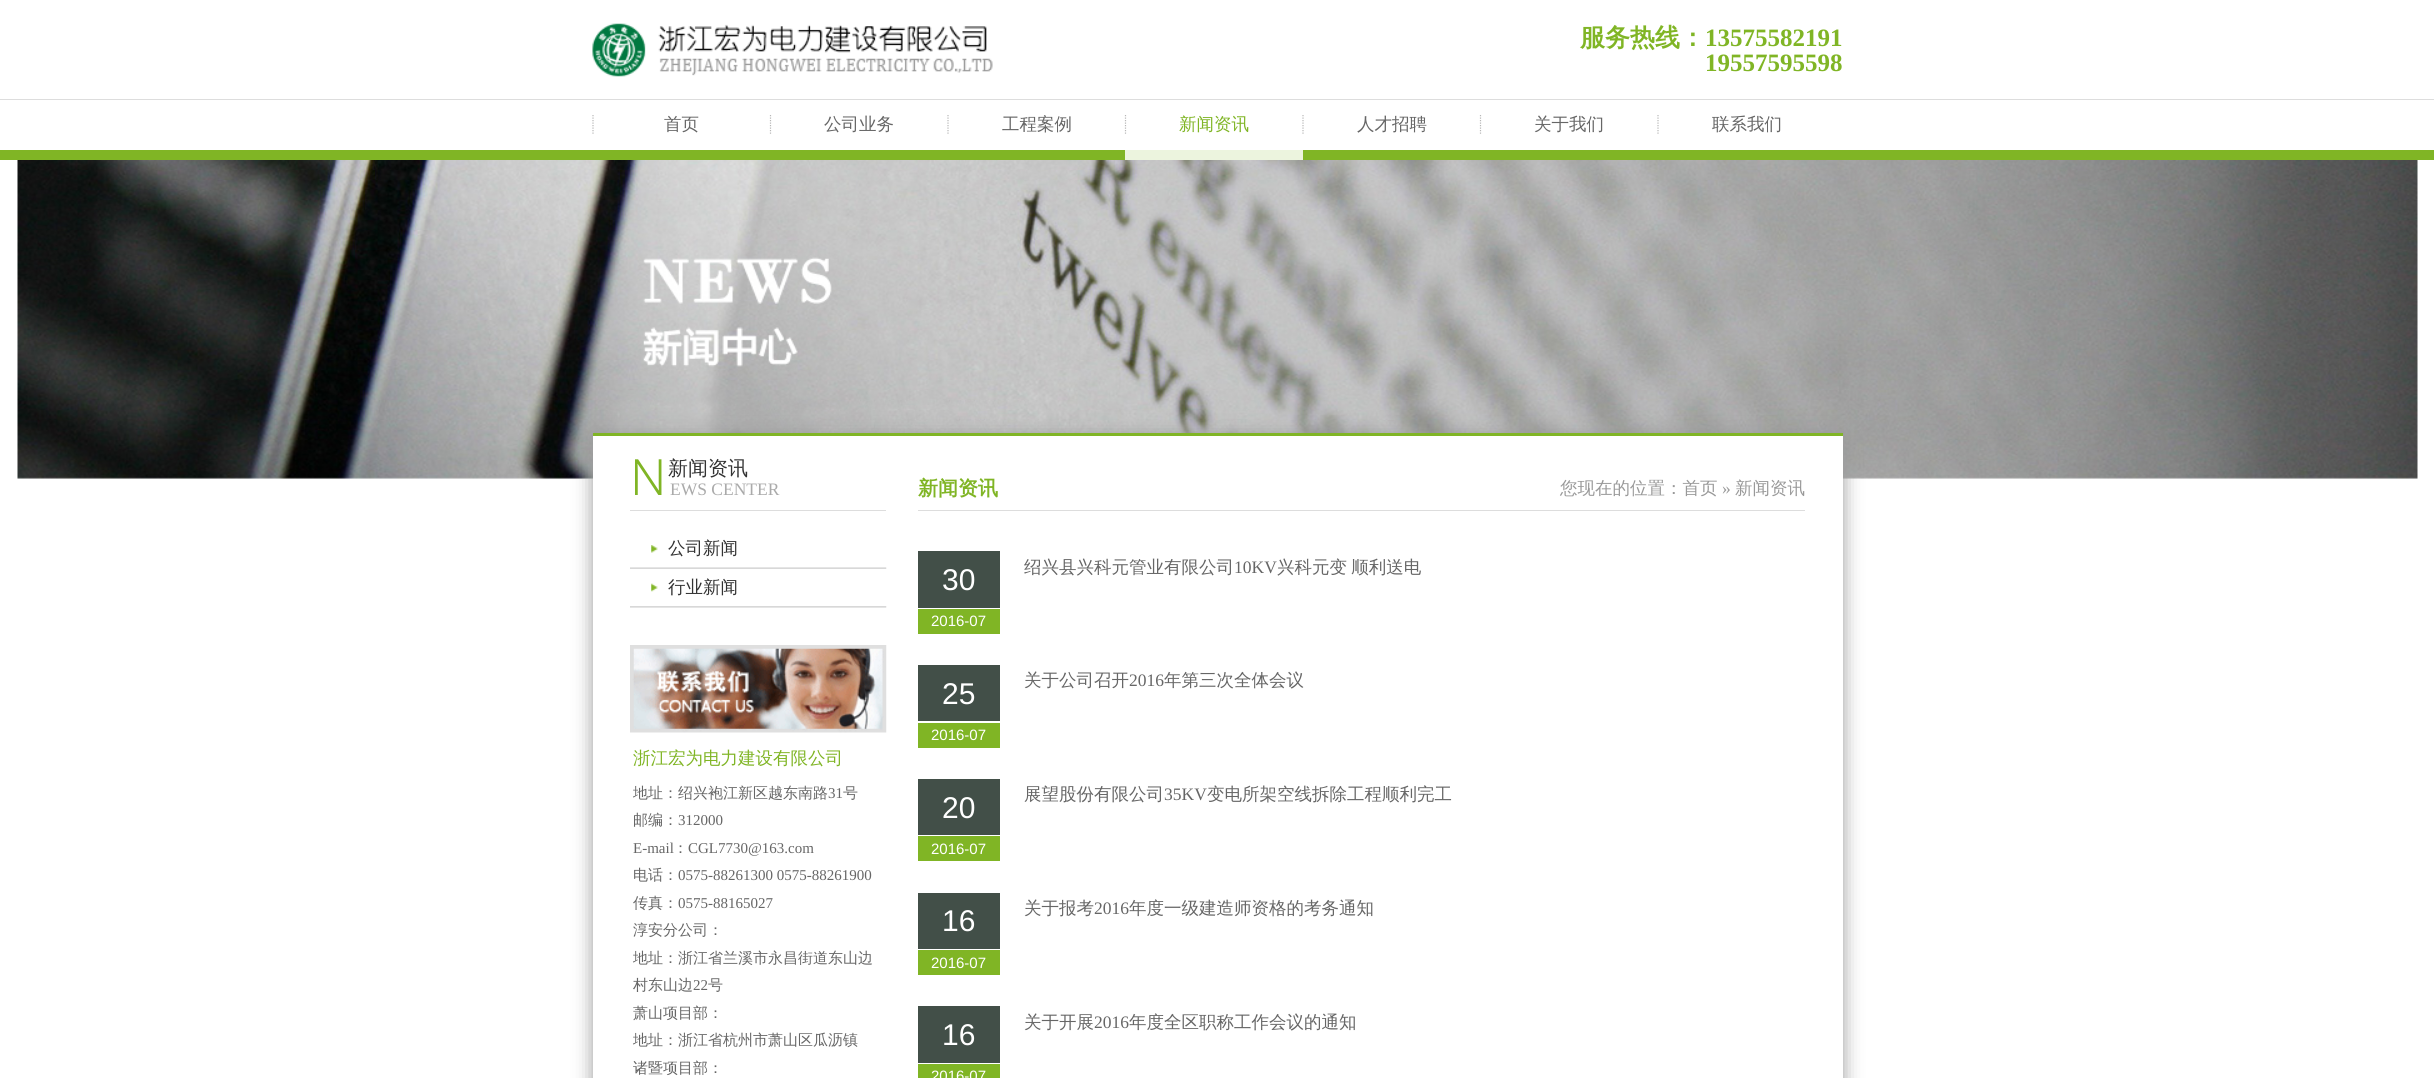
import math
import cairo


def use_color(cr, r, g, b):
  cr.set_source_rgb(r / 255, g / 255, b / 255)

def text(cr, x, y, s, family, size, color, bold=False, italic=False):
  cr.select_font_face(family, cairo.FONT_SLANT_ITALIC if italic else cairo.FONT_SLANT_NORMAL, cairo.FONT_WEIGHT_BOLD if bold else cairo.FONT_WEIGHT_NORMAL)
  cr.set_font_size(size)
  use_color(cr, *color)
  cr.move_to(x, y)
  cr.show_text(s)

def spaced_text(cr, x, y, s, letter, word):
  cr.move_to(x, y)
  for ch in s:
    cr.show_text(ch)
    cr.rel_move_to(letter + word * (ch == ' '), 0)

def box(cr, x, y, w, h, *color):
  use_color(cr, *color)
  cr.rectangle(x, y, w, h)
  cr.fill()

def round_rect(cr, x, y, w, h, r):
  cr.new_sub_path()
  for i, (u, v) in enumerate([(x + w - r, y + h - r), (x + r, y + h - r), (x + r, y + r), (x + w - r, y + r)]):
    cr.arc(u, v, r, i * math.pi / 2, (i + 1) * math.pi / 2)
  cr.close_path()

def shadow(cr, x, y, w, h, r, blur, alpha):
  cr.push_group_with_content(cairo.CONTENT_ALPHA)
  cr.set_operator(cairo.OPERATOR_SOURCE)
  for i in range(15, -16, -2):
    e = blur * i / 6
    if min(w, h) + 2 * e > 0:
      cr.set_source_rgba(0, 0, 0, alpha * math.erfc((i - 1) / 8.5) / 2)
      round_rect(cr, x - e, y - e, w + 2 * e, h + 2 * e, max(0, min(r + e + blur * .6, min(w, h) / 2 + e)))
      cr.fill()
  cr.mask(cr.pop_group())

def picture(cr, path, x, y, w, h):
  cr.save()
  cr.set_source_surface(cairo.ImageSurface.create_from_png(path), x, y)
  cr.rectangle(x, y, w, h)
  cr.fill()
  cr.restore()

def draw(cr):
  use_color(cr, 255, 255, 255)
  cr.paint()
  box(cr, 0, 99, 2434, 1, 221, 221, 221)
  picture(cr, "img_01.png", 592, 23, 401, 54)
  box(cr, 0, 150, 2434, 10, 128, 181, 37)
  box(cr, 1125, 150, 178, 10, 236, 244, 222)
  cr.new_path()
  cr.move_to(593, 115)
  cr.line_to(593, 135)
  use_color(cr, 183, 183, 183)
  cr.set_line_width(1.2)
  cr.set_dash([1.25, 1.25])
  cr.stroke()
  cr.new_path()
  cr.move_to(770.5, 115)
  cr.line_to(770.5, 135)
  cr.stroke()
  cr.new_path()
  cr.move_to(948, 115)
  cr.line_to(948, 135)
  cr.stroke()
  cr.new_path()
  cr.move_to(1125.5, 115)
  cr.line_to(1125.5, 135)
  cr.stroke()
  cr.new_path()
  cr.move_to(1303, 115)
  cr.line_to(1303, 135)
  cr.stroke()
  cr.new_path()
  cr.move_to(1480.5, 115)
  cr.line_to(1480.5, 135)
  cr.stroke()
  cr.new_path()
  cr.move_to(1658, 115)
  cr.line_to(1658, 135)
  cr.stroke()
  picture(cr, "img_02.png", 17, 160, 2401, 319)
  use_color(cr, 153, 153, 153)
  shadow(cr, 593, 436, 1250, 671, 0, 9.5, 1)
  box(cr, 593, 436, 1250, 642, 255, 255, 255)
  box(cr, 593, 433, 1250, 3, 128, 181, 37)
  box(cr, 630, 510, 256, 1, 221, 221, 221)
  picture(cr, "img_03.png", 630, 567, 257, 2)
  picture(cr, "img_04.png", 651, 545, 7, 8)
  picture(cr, "img_05.png", 630, 606, 257, 2)
  picture(cr, "img_06.png", 651, 583, 7, 9)
  picture(cr, "img_07.png", 630, 645, 257, 88)
  box(cr, 918, 510, 887, 1, 221, 221, 221)
  box(cr, 918, 551, 82, 57, 66, 79, 72)
  box(cr, 918, 609, 82, 25, 128, 181, 37)
  box(cr, 918, 665, 82, 56, 66, 79, 72)
  box(cr, 918, 723, 82, 25, 128, 181, 37)
  box(cr, 918, 779, 82, 56, 66, 79, 72)
  box(cr, 918, 836, 82, 25, 128, 181, 37)
  box(cr, 918, 893, 82, 56, 66, 79, 72)
  box(cr, 918, 950, 82, 25, 128, 181, 37)
  box(cr, 918, 1006, 82, 57, 66, 79, 72)
  box(cr, 918, 1064, 82, 14, 128, 181, 37)
  text(cr, 1580, 46, "服务热线：", "WenQuanYi Zen Hei", 25, (128, 181, 37), bold=True)
  text(cr, 1705, 46, "13575582191", "Liberation Serif", 25, (128, 181, 37), bold=True)
  text(cr, 1705, 71, "19557595598", "Liberation Serif", 25, (128, 181, 37), bold=True)
  text(cr, 664, 130, "首页", "WenQuanYi Zen Hei Medium", 17.5, (102, 102, 102))
  text(cr, 824, 130, "公司业务", "WenQuanYi Zen Hei Medium", 17.5, (102, 102, 102))
  text(cr, 1002, 130, "工程案例", "WenQuanYi Zen Hei Medium", 17.5, (102, 102, 102))
  text(cr, 1179, 130, "新闻资讯", "WenQuanYi Zen Hei Medium", 17.5, (128, 181, 37))
  text(cr, 1357, 130, "人才招聘", "WenQuanYi Zen Hei Medium", 17.5, (102, 102, 102))
  text(cr, 1534, 130, "关于我们", "WenQuanYi Zen Hei Medium", 17.5, (102, 102, 102))
  text(cr, 1712, 130, "联系我们", "WenQuanYi Zen Hei Medium", 17.5, (102, 102, 102))
  text(cr, 668, 475, "新闻资讯", "WenQuanYi Zen Hei Medium", 20, (51, 51, 51))
  text(cr, 630, 495, "N", "Noto Sans Light", 50, (128, 181, 37))
  text(cr, 670, 495, "EWS CENTER", "Liberation Serif", 17.5, (170, 170, 170))
  text(cr, 668, 554, "公司新闻", "WenQuanYi Zen Hei Medium", 17.5, (51, 51, 51))
  text(cr, 668, 593, "行业新闻", "WenQuanYi Zen Hei Medium", 17.5, (51, 51, 51))
  text(cr, 633, 764, "浙江宏为电力建设有限公司", "WenQuanYi Zen Hei Medium", 17.5, (128, 181, 37))
  text(cr, 633, 798, "地址：绍兴袍江新区越东南路", "WenQuanYi Zen Hei Medium", 15, (102, 102, 102))
  text(cr, 828, 798, "31", "Liberation Serif", 15, (102, 102, 102))
  text(cr, 843, 798, "号", "WenQuanYi Zen Hei Medium", 15, (102, 102, 102))
  text(cr, 633, 825, "邮编：", "WenQuanYi Zen Hei Medium", 15, (102, 102, 102))
  text(cr, 678, 825, "312000", "Liberation Serif", 15, (102, 102, 102))
  text(cr, 633, 853, "E-mail", "Liberation Serif", 15, (102, 102, 102))
  text(cr, 673, 853, "：", "WenQuanYi Zen Hei Medium", 15, (102, 102, 102))
  text(cr, 688, 853, "CGL7730@163.com", "Liberation Serif", 15, (102, 102, 102))
  text(cr, 633, 880, "电话：", "WenQuanYi Zen Hei Medium", 15, (102, 102, 102))
  text(cr, 678, 880, "0575-88261300 0575-88261900", "Liberation Serif", 15, (102, 102, 102))
  text(cr, 633, 908, "传真：", "WenQuanYi Zen Hei Medium", 15, (102, 102, 102))
  text(cr, 678, 908, "0575-88165027", "Liberation Serif", 15, (102, 102, 102))
  text(cr, 633, 935, "淳安分公司：", "WenQuanYi Zen Hei Medium", 15, (102, 102, 102))
  text(cr, 633, 963, "地址：浙江省兰溪市永昌街道东山边", "WenQuanYi Zen Hei Medium", 15, (102, 102, 102))
  text(cr, 633, 990, "村东山边", "WenQuanYi Zen Hei Medium", 15, (102, 102, 102))
  text(cr, 693, 990, "22", "Liberation Serif", 15, (102, 102, 102))
  text(cr, 708, 990, "号", "WenQuanYi Zen Hei Medium", 15, (102, 102, 102))
  text(cr, 633, 1018, "萧山项目部：", "WenQuanYi Zen Hei Medium", 15, (102, 102, 102))
  text(cr, 633, 1045, "地址：浙江省杭州市萧山区瓜沥镇", "WenQuanYi Zen Hei Medium", 15, (102, 102, 102))
  text(cr, 633, 1073, "诸暨项目部：", "WenQuanYi Zen Hei Medium", 15, (102, 102, 102))
  text(cr, 918, 495, "新闻资讯", "WenQuanYi Zen Hei", 20, (128, 181, 37), bold=True)
  text(cr, 1560, 494, "您现在的位置：首页", "WenQuanYi Zen Hei Medium", 17.5, (153, 153, 153))
  text(cr, 1722, 494, "»", "Liberation Serif", 17.5, (153, 153, 153))
  text(cr, 1735, 494, "新闻资讯", "WenQuanYi Zen Hei Medium", 17.5, (153, 153, 153))
  text(cr, 1024, 573, "绍兴县兴科元管业有限公司", "WenQuanYi Zen Hei Medium", 17.5, (102, 102, 102))
  text(cr, 1234, 573, "10KV", "Liberation Serif", 17.5, (102, 102, 102))
  cr.select_font_face("WenQuanYi Zen Hei Medium")
  spaced_text(cr, 1277, 573, "兴科元变 顺利送电", 0, -1)
  text(cr, 942, 590, "30", "Liberation Sans", 30, (255, 255, 255))
  text(cr, 931, 626, "2016-07", "Liberation Sans", 15, (255, 255, 255))
  text(cr, 1024, 686, "关于公司召开", "WenQuanYi Zen Hei Medium", 17.5, (102, 102, 102))
  text(cr, 1129, 686, "2016", "Liberation Serif", 17.5, (102, 102, 102))
  text(cr, 1164, 686, "年第三次全体会议", "WenQuanYi Zen Hei Medium", 17.5, (102, 102, 102))
  text(cr, 942, 704, "25", "Liberation Sans", 30, (255, 255, 255))
  text(cr, 931, 740, "2016-07", "Liberation Sans", 15, (255, 255, 255))
  text(cr, 1024, 800, "展望股份有限公司", "WenQuanYi Zen Hei Medium", 17.5, (102, 102, 102))
  text(cr, 1164, 800, "35KV", "Liberation Serif", 17.5, (102, 102, 102))
  text(cr, 1207, 800, "变电所架空线拆除工程顺利完工", "WenQuanYi Zen Hei Medium", 17.5, (102, 102, 102))
  text(cr, 942, 818, "20", "Liberation Sans", 30, (255, 255, 255))
  text(cr, 931, 854, "2016-07", "Liberation Sans", 15, (255, 255, 255))
  text(cr, 1024, 914, "关于报考", "WenQuanYi Zen Hei Medium", 17.5, (102, 102, 102))
  text(cr, 1094, 914, "2016", "Liberation Serif", 17.5, (102, 102, 102))
  text(cr, 1129, 914, "年度一级建造师资格的考务通知", "WenQuanYi Zen Hei Medium", 17.5, (102, 102, 102))
  text(cr, 942, 931, "16", "Liberation Sans", 30, (255, 255, 255))
  text(cr, 931, 968, "2016-07", "Liberation Sans", 15, (255, 255, 255))
  text(cr, 1024, 1028, "关于开展", "WenQuanYi Zen Hei Medium", 17.5, (102, 102, 102))
  text(cr, 1094, 1028, "2016", "Liberation Serif", 17.5, (102, 102, 102))
  text(cr, 1129, 1028, "年度全区职称工作会议的通知", "WenQuanYi Zen Hei Medium", 17.5, (102, 102, 102))
  text(cr, 942, 1045, "16", "Liberation Sans", 30, (255, 255, 255))
  text(cr, 931, 1081, "2016-07", "Liberation Sans", 15, (255, 255, 255))


surface = cairo.ImageSurface(cairo.FORMAT_RGB24, 2434, 1078)
cr = cairo.Context(surface)
options = cairo.FontOptions()
options.set_hint_metrics(cairo.HINT_METRICS_OFF)
options.set_hint_style(cairo.HINT_STYLE_NONE)
cr.set_font_options(options)
cr.set_miter_limit(4)
draw(cr)
surface.write_to_png("out.png")
